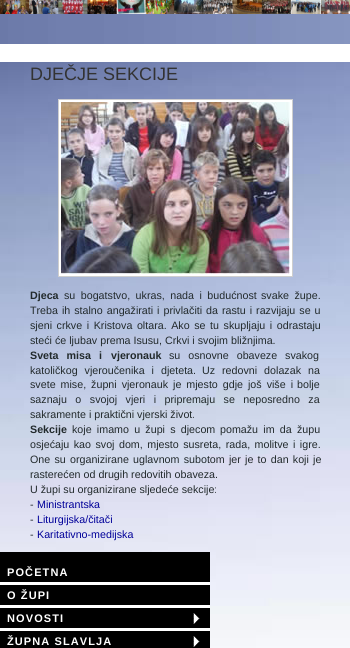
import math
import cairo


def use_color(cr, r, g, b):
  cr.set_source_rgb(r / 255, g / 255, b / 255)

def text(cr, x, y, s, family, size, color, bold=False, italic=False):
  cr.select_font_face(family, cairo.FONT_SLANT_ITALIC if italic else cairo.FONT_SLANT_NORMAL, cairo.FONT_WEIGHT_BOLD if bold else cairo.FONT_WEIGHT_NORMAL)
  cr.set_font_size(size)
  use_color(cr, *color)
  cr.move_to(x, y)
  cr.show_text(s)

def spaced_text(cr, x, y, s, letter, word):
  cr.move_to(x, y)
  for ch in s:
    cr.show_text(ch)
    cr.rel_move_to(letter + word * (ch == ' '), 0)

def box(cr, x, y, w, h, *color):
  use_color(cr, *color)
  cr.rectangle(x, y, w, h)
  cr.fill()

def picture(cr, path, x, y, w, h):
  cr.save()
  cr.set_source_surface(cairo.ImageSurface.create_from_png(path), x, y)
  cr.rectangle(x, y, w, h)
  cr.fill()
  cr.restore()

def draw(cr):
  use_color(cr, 255, 255, 255)
  cr.paint()
  picture(cr, "img_01.png", 0, 0, 350, 14)
  picture(cr, "img_02.png", 0, 14, 350, 30)
  picture(cr, "img_03.png", 0, 62, 350, 586)
  use_color(cr, 255, 255, 255)
  cr.rectangle(58.5, 99.5, 234, 177)
  cr.fill_preserve()
  use_color(cr, 206, 206, 206)
  cr.set_line_width(1)
  cr.stroke()
  picture(cr, "img_04.png", 61, 102, 229, 172)
  box(cr, 0, 552, 210, 96, 0, 0, 0)
  box(cr, 0, 582, 210, 3, 255, 255, 255)
  box(cr, 0, 605, 210, 3, 255, 255, 255)
  box(cr, 0, 628, 210, 3, 255, 255, 255)
  picture(cr, "img_05.png", 193, 613, 7, 11)
  picture(cr, "img_05.png", 193, 636, 7, 11)
  text(cr, 30, 80, "DJEČJE SEKCIJE", "Liberation Sans", 18, (51, 51, 51))
  text(cr, 30, 299, "Djeca", "Liberation Sans", 10.7, (34, 42, 44), bold=True)
  cr.select_font_face("Liberation Sans")
  spaced_text(cr, 64, 299, "su bogatstvo, ukras, nada i budućnost", 0, 2.5)
  spaced_text(cr, 261, 299, "svake župe.", 0, 2.5)
  spaced_text(cr, 30, 314, "Treba ih stalno angažirati i privlačiti da rastu i razvijaju se u", 0, 1)
  spaced_text(cr, 30, 329, "sjeni crkve i Kristova oltara. Ako se tu skupljaju i odrastaju", 0, 1.6)
  text(cr, 30, 344, "steći će ljubav prema Isusu, Crkvi i svojim bližnjima.", "Liberation Sans", 10.7, (34, 42, 44))
  cr.select_font_face("Liberation Sans", cairo.FONT_SLANT_NORMAL, cairo.FONT_WEIGHT_BOLD)
  spaced_text(cr, 30, 359, "Sveta misa i", 0, 5)
  text(cr, 111, 359, "vjeronauk", "Liberation Sans", 10.7, (34, 42, 44), bold=True)
  cr.select_font_face("Liberation Sans")
  spaced_text(cr, 169, 359, "su osnovne obaveze svakog", 0, 5)
  spaced_text(cr, 30, 374, "katoličkog vjeroučenika i djeteta.", 0, 4)
  spaced_text(cr, 202, 374, "Uz redovni dolazak na", 0, 4)
  spaced_text(cr, 30, 388, "svete mise, župni vjeronauk je mjesto gdje još više i", 0, 2)
  text(cr, 297, 388, "bolje", "Liberation Sans", 10.7, (34, 42, 44))
  spaced_text(cr, 30, 403, "saznaju o svojoj vjeri i pripremaju se neposredno za", 0, 5.5)
  text(cr, 30, 418, "sakramente i praktični vjerski život.", "Liberation Sans", 10.7, (34, 42, 44))
  text(cr, 30, 433, "Sekcije", "Liberation Sans", 10.7, (34, 42, 44), bold=True)
  cr.select_font_face("Liberation Sans")
  spaced_text(cr, 72, 433, "koje imamo u župi s djecom", 0, 2.25)
  spaced_text(cr, 220, 433, "pomažu im da župu", 0, 2.25)
  spaced_text(cr, 30, 448, "osjećaju kao svoj dom, mjesto susreta, rada, molitve i igre.", 0, 1.5)
  spaced_text(cr, 30, 463, "One su organizirane uglavnom subotom jer je to dan koji je", 0, 1.25)
  text(cr, 30, 478, "rasterećen od drugih redovitih obaveza.", "Liberation Sans", 10.7, (34, 42, 44))
  text(cr, 30, 493, "U župi su organizirane sljedeće sekcije:", "Liberation Sans", 10.7, (34, 42, 44))
  text(cr, 30, 508, "-", "Liberation Sans", 10.7, (34, 42, 44))
  text(cr, 37, 508, "Ministrantska", "Liberation Sans", 10.7, (0, 0, 153))
  text(cr, 30, 523, "-", "Liberation Sans", 10.7, (34, 42, 44))
  text(cr, 37, 523, "Liturgijska/čitači", "Liberation Sans", 10.7, (0, 0, 153))
  text(cr, 30, 538, "-", "Liberation Sans", 10.7, (34, 42, 44))
  text(cr, 37, 538, "Karitativno-medijska", "Liberation Sans", 10.7, (0, 0, 153))
  cr.select_font_face("Liberation Sans", cairo.FONT_SLANT_NORMAL, cairo.FONT_WEIGHT_BOLD)
  cr.set_font_size(11)
  use_color(cr, 255, 255, 255)
  spaced_text(cr, 7, 576, "POČETNA", 1.1, 0)
  spaced_text(cr, 7, 599, "O ŽUPI", 1.1, 0)
  spaced_text(cr, 7, 622, "NOVOSTI", 1.1, 0)
  spaced_text(cr, 7, 645, "ŽUPNA SLAVLJA", 1.1, 0)


surface = cairo.ImageSurface(cairo.FORMAT_RGB24, 350, 648)
cr = cairo.Context(surface)
options = cairo.FontOptions()
options.set_hint_metrics(cairo.HINT_METRICS_OFF)
options.set_hint_style(cairo.HINT_STYLE_NONE)
cr.set_font_options(options)
cr.set_miter_limit(4)
draw(cr)
surface.write_to_png("out.png")
